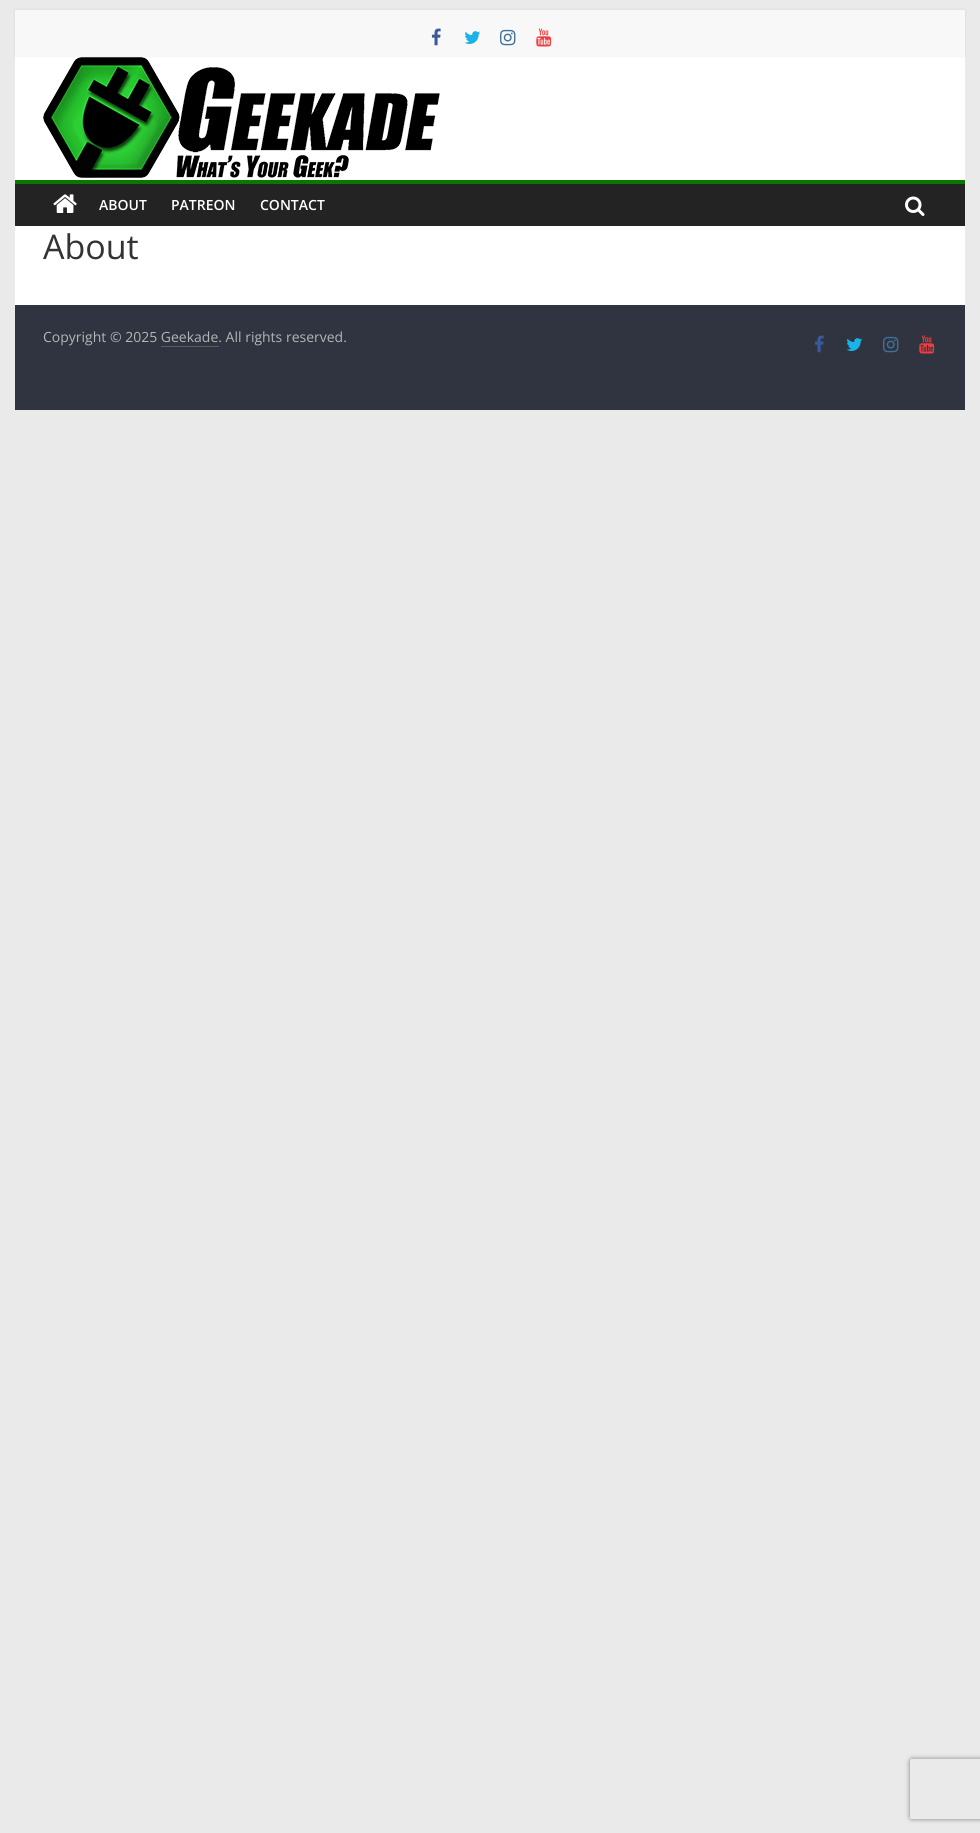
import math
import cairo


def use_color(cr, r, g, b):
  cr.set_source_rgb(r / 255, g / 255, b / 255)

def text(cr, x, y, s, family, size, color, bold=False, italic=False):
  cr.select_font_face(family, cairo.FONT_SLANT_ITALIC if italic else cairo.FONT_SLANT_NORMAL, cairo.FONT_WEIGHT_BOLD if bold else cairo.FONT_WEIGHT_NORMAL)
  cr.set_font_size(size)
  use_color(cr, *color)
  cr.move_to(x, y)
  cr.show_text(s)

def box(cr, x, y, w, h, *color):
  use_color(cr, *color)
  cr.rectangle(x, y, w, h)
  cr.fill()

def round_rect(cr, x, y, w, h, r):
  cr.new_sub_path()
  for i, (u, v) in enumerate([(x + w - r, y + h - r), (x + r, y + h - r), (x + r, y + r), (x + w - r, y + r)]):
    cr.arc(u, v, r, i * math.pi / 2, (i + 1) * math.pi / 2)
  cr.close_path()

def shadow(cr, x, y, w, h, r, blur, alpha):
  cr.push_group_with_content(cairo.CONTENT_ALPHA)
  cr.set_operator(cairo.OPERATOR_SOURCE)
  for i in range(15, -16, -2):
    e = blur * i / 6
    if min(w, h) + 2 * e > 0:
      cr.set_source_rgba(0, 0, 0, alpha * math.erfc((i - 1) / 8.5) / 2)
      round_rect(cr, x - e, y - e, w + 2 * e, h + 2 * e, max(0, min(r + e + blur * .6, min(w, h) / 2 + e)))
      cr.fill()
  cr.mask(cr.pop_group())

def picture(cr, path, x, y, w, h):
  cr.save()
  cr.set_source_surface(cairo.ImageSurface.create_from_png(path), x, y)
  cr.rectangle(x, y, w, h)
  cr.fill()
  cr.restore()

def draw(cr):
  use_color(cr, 234, 234, 234)
  cr.paint()
  box(cr, 15, 56, 950, 124, 255, 255, 255)
  use_color(cr, 0, 0, 0)
  shadow(cr, 15, 10, 950, 46, 0, 1, 0.1)
  box(cr, 15, 10, 950, 46, 248, 248, 248)
  picture(cr, "img_01.png", 431, 28, 10, 18)
  picture(cr, "img_02.png", 464, 31, 17, 13)
  picture(cr, "img_03.png", 500, 29, 16, 17)
  picture(cr, "img_04.png", 536, 28, 16, 19)
  picture(cr, "img_05.png", 43, 57, 397, 121)
  box(cr, 15, 184, 950, 42, 35, 35, 35)
  box(cr, 15, 180, 950, 4, 9, 119, 0)
  picture(cr, "img_06.png", 53, 194, 24, 19)
  picture(cr, "img_07.png", 905, 196, 20, 20)
  box(cr, 15, 226, 950, 79, 255, 255, 255)
  box(cr, 15, 305, 950, 105, 48, 52, 64)
  box(cr, 161, 346, 58, 1, 90, 93, 98)
  picture(cr, "img_08.png", 814, 335, 10, 18)
  picture(cr, "img_09.png", 846, 338, 17, 13)
  picture(cr, "img_10.png", 883, 336, 16, 17)
  picture(cr, "img_11.png", 919, 335, 16, 19)
  cr.save()
  cr.set_fill_rule(cairo.FILL_RULE_EVEN_ODD)
  cr.new_path()
  cr.move_to(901, 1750)
  cr.line_to(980, 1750)
  cr.line_to(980, 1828)
  cr.line_to(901, 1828)
  cr.close_path()
  cr.move_to(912, 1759)
  cr.line_to(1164, 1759)
  cr.curve_to(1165, 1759, 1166, 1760, 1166, 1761)
  cr.line_to(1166, 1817)
  cr.curve_to(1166, 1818, 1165, 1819, 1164, 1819)
  cr.line_to(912, 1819)
  cr.curve_to(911, 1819, 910, 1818, 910, 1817)
  cr.line_to(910, 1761)
  cr.curve_to(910, 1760, 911, 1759, 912, 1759)
  cr.close_path()
  cr.clip()
  use_color(cr, 128, 128, 128)
  shadow(cr, 910, 1759, 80, 60, 2, 2.5, 1)
  cr.restore()
  text(cr, 99, 210, "ABOUT", "Open Sans SemiBold", 14, (255, 255, 255))
  text(cr, 171, 210, "PATREON", "Open Sans SemiBold", 14, (255, 255, 255))
  text(cr, 260, 210, "CONTACT", "Open Sans SemiBold", 14, (255, 255, 255))
  text(cr, 43, 259, "About", "Open Sans", 34, (51, 51, 51))
  text(cr, 43, 342, "Copyright © 2025 Geekade. All rights reserved.", "Open Sans", 14, (177, 182, 182))


surface = cairo.ImageSurface(cairo.FORMAT_RGB24, 980, 1833)
cr = cairo.Context(surface)
options = cairo.FontOptions()
options.set_hint_metrics(cairo.HINT_METRICS_OFF)
options.set_hint_style(cairo.HINT_STYLE_NONE)
cr.set_font_options(options)
cr.set_miter_limit(4)
draw(cr)
surface.write_to_png("out.png")
